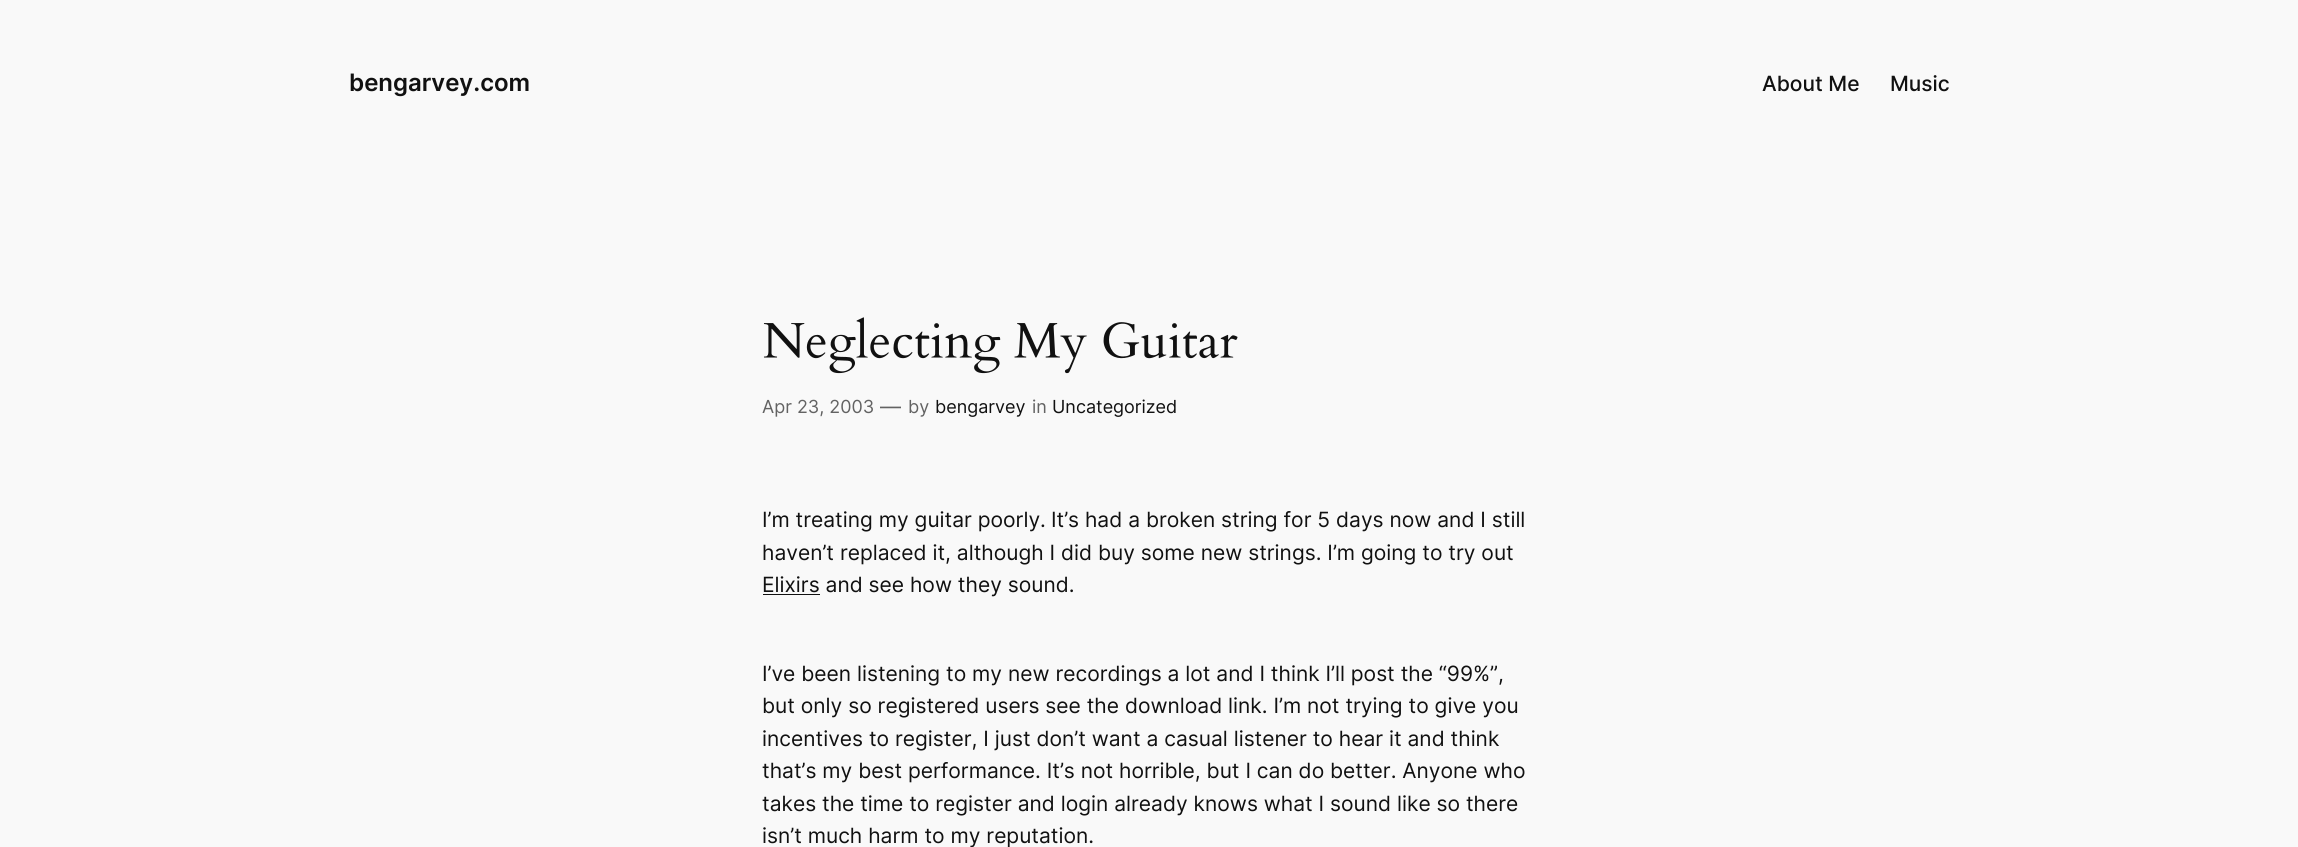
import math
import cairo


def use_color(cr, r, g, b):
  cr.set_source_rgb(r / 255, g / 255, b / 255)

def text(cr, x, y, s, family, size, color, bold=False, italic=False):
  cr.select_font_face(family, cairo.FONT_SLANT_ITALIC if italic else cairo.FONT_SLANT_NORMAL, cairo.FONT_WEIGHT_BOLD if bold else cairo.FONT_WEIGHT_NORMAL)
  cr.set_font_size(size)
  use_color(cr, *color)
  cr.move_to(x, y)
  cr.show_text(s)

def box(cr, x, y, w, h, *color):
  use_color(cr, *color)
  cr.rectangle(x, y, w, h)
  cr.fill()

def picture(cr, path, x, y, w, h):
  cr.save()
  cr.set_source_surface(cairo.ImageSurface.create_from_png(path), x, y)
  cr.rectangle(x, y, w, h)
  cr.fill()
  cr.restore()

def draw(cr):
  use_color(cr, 249, 249, 249)
  cr.paint()
  picture(cr, "img_01.png", 763, 317, 475, 57)
  box(cr, 763, 594, 57, 1, 17, 17, 17)
  text(cr, 349, 91, "bengarvey.com", "Inter SemiBold", 24, (17, 17, 17))
  text(cr, 1762, 91, "About Me", "Inter Medium", 21, (17, 17, 17))
  text(cr, 1890, 91, "Music", "Inter Medium", 21, (17, 17, 17))
  text(cr, 762, 413, "Apr 23, 2003", "Inter", 18, (99, 99, 99))
  text(cr, 880, 414, "—", "Inter", 21, (99, 99, 99))
  text(cr, 908, 413, "by", "Inter", 18, (99, 99, 99))
  text(cr, 935, 413, "bengarvey", "Inter", 18, (17, 17, 17))
  text(cr, 1032, 413, "in", "Inter", 18, (99, 99, 99))
  text(cr, 1052, 413, "Uncategorized", "Inter", 18, (17, 17, 17))
  text(cr, 762, 527, "I’m treating my guitar poorly.", "Inter", 21, (17, 17, 17))
  text(cr, 1051, 527, "It’s had a broken string for 5 days now and I still", "Inter", 21, (17, 17, 17))
  text(cr, 762, 560, "haven’t replaced it, although I did buy some new strings. I’m going to try out", "Inter", 21, (17, 17, 17))
  text(cr, 762, 592, "Elixirs and see how they sound.", "Inter", 21, (17, 17, 17))
  text(cr, 762, 681, "I’ve been listening to my new recordings a lot and I think I’ll post the “99%”,", "Inter", 21, (17, 17, 17))
  text(cr, 762, 713, "but only so registered users see the download link. I’m not trying to give you", "Inter", 21, (17, 17, 17))
  text(cr, 762, 746, "incentives to register, I just don’t want a casual listener to hear it and think", "Inter", 21, (17, 17, 17))
  text(cr, 762, 778, "that’s my best performance. It’s not horrible, but I can do better. Anyone who", "Inter", 21, (17, 17, 17))
  text(cr, 762, 811, "takes the time to register and login already knows what I sound like so there", "Inter", 21, (17, 17, 17))
  text(cr, 762, 843, "isn’t much harm to my reputation.", "Inter", 21, (17, 17, 17))


surface = cairo.ImageSurface(cairo.FORMAT_RGB24, 2298, 847)
cr = cairo.Context(surface)
options = cairo.FontOptions()
options.set_hint_metrics(cairo.HINT_METRICS_OFF)
options.set_hint_style(cairo.HINT_STYLE_NONE)
cr.set_font_options(options)
cr.set_miter_limit(4)
draw(cr)
surface.write_to_png("out.png")
